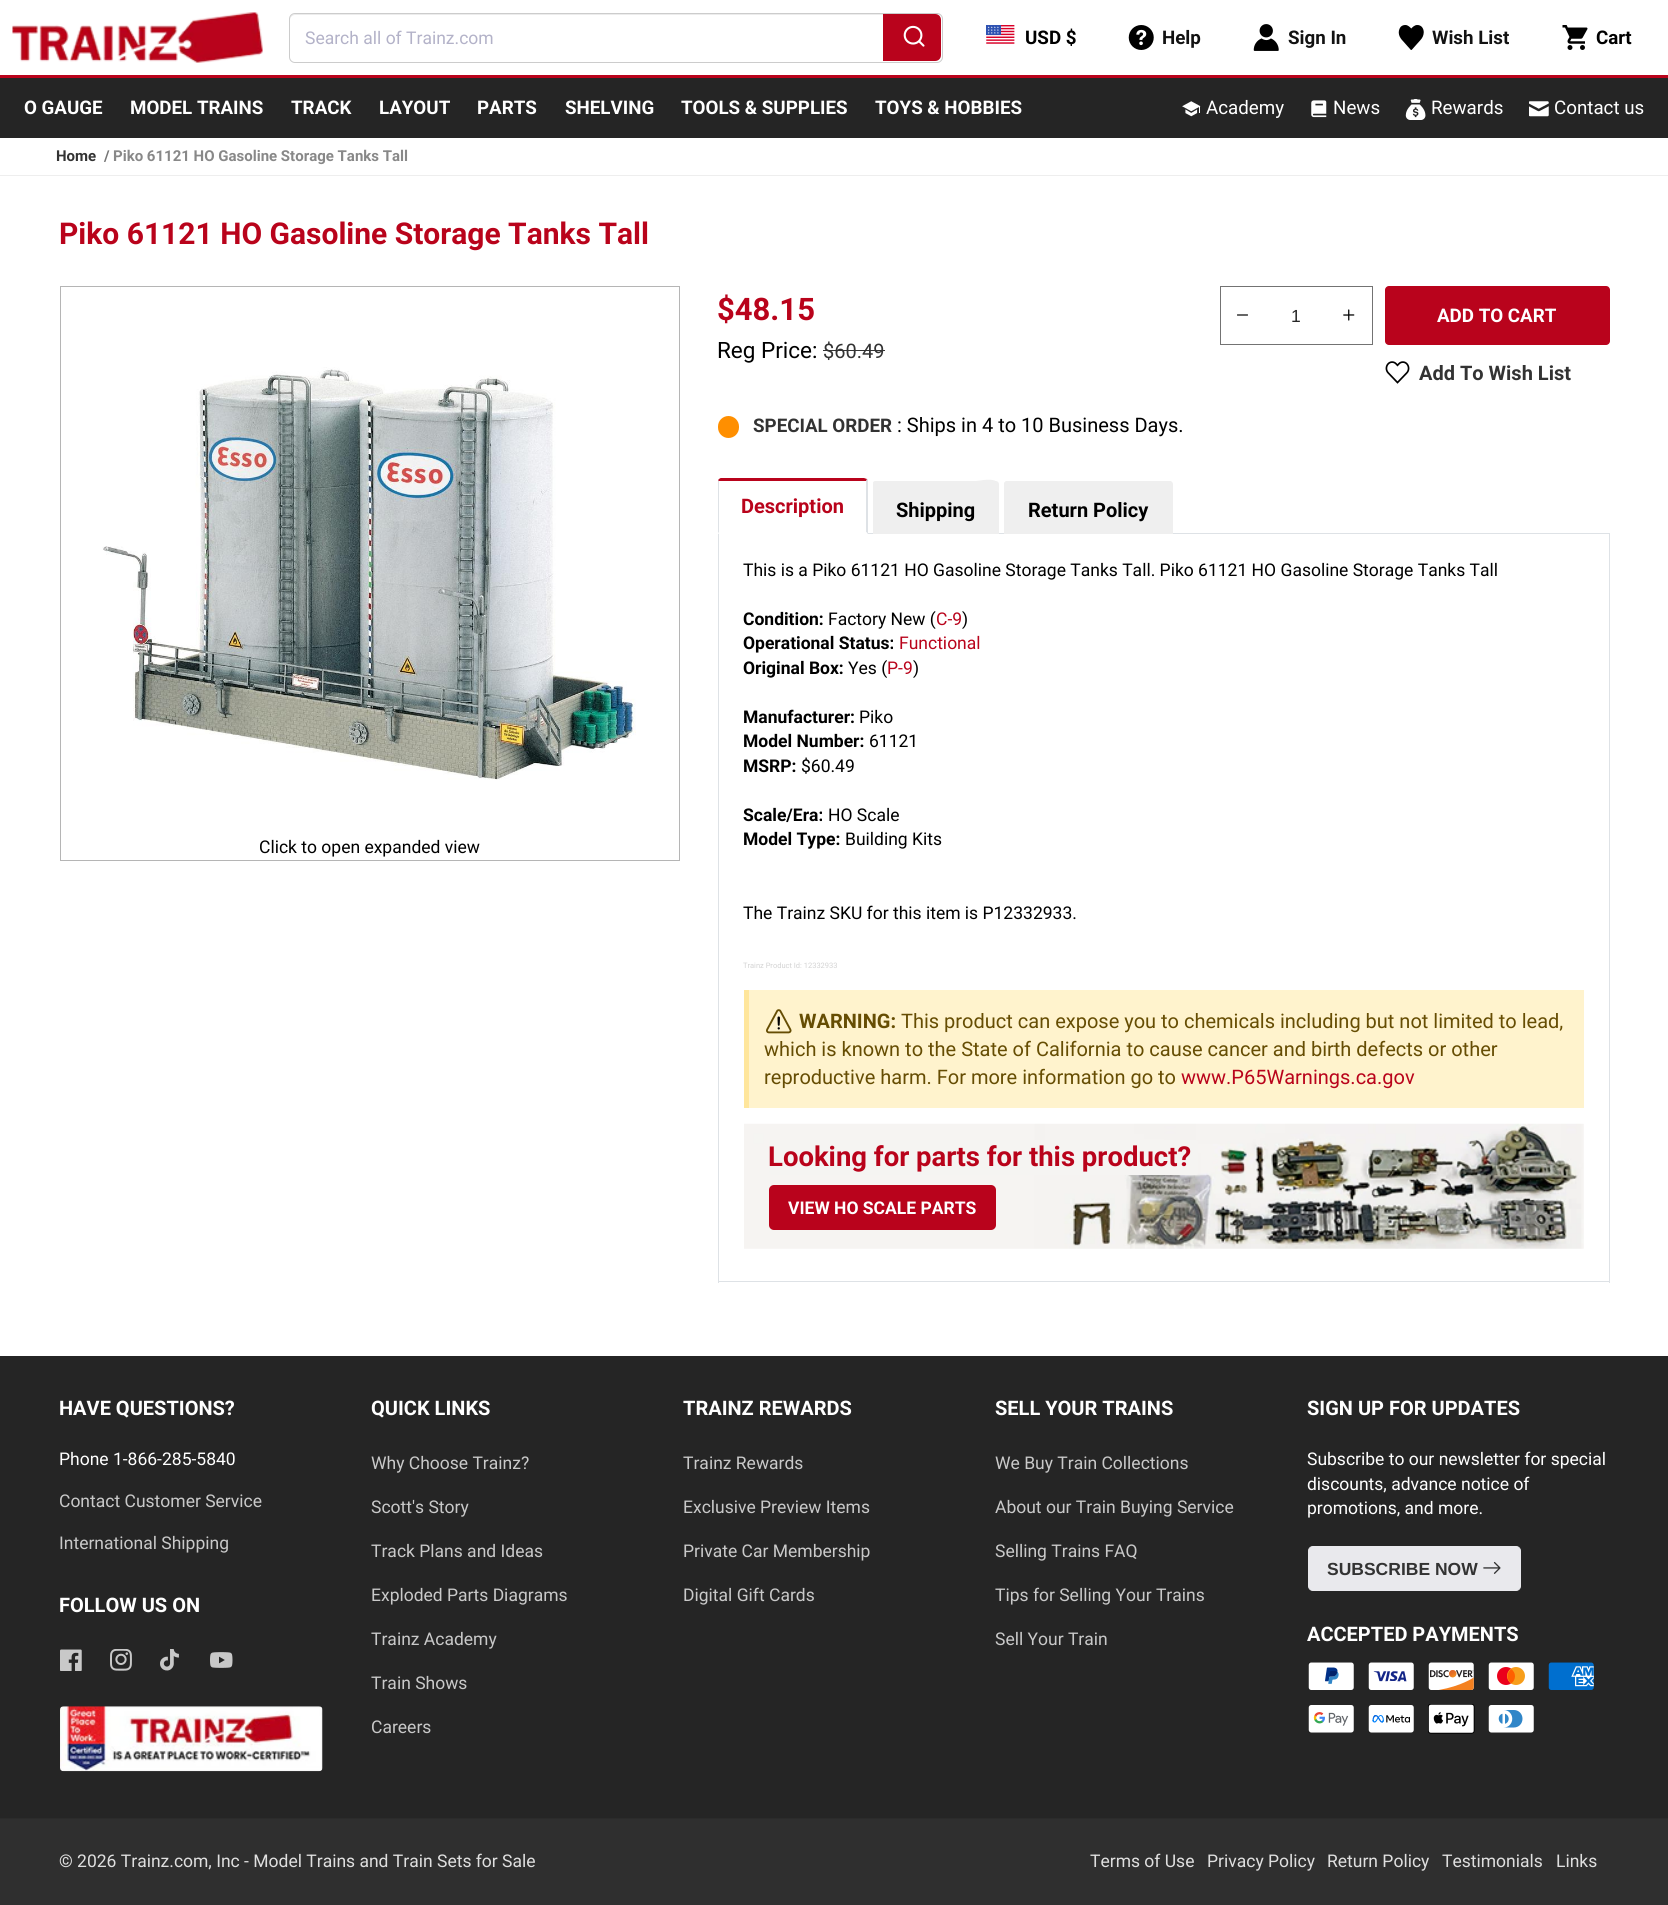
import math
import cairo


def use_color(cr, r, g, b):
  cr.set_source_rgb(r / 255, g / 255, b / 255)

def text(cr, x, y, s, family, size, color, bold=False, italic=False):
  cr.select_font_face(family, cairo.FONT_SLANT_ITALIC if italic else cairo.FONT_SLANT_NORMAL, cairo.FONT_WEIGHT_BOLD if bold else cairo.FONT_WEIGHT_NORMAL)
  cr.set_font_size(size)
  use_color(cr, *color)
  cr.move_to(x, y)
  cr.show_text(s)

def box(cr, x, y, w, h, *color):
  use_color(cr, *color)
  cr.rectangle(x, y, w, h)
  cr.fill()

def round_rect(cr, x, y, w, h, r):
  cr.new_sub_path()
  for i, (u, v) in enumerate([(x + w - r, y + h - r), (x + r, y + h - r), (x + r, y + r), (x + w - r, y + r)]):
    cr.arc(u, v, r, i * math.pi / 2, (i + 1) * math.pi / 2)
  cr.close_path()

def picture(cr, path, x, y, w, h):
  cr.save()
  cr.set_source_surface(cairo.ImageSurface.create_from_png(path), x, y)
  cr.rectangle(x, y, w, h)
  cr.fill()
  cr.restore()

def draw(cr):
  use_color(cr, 255, 255, 255)
  cr.paint()
  picture(cr, "img_01.png", 12, 12, 251, 51)
  round_rect(cr, 289.5, 13.5, 653, 49, 5.5)
  use_color(cr, 204, 204, 204)
  cr.set_line_width(1)
  cr.stroke()
  use_color(cr, 255, 255, 255)
  round_rect(cr, 289, 13, 654, 50, 4)
  cr.fill()
  use_color(cr, 236, 236, 236)
  cr.new_path()
  cr.move_to(295, 15)
  cr.line_to(937, 15)
  cr.curve_to(938, 15, 939, 16, 940, 16)
  cr.curve_to(939, 15, 938, 14, 936, 14)
  cr.line_to(295, 14)
  cr.curve_to(292, 14, 290, 16, 290, 19)
  cr.line_to(290, 20)
  cr.curve_to(290, 17, 293, 15, 295, 15)
  cr.close_path()
  cr.fill()
  round_rect(cr, 289.5, 13.5, 653, 49, 5.5)
  use_color(cr, 204, 204, 204)
  cr.stroke()
  use_color(cr, 185, 3, 28)
  cr.new_path()
  cr.move_to(883, 14)
  cr.line_to(935, 14)
  cr.curve_to(938.5, 14, 941, 16.5, 941, 20)
  cr.line_to(941, 55)
  cr.curve_to(941, 58.5, 938.5, 61, 935, 61)
  cr.line_to(883, 61)
  cr.close_path()
  cr.fill()
  picture(cr, "img_02.png", 903, 25, 22, 22)
  picture(cr, "img_03.png", 986, 25, 29, 19)
  picture(cr, "img_04.png", 1128, 25, 26, 25)
  picture(cr, "img_05.png", 1253, 24, 26, 27)
  picture(cr, "img_06.png", 1398, 25, 26, 25)
  picture(cr, "img_07.png", 1562, 25, 26, 25)
  box(cr, 0, 78, 1668, 60, 37, 37, 37)
  box(cr, 0, 75, 1668, 3, 185, 3, 27)
  picture(cr, "img_08.png", 1182, 101, 19, 16)
  picture(cr, "img_09.png", 1311, 100, 16, 18)
  picture(cr, "img_10.png", 1405, 99, 21, 21)
  picture(cr, "img_11.png", 1529, 101, 20, 16)
  box(cr, 0, 175, 1668, 1, 238, 238, 238)
  cr.rectangle(60.5, 286.5, 619, 574)
  use_color(cr, 181, 181, 181)
  cr.stroke()
  picture(cr, "img_12.png", 102, 367, 534, 413)
  box(cr, 823, 350, 62, 1, 51, 51, 51)
  picture(cr, "img_13.png", 1237, 314, 11, 2)
  picture(cr, "img_14.png", 1343, 309, 12, 12)
  cr.rectangle(1220.5, 286.5, 152, 58)
  use_color(cr, 115, 115, 115)
  cr.stroke()
  use_color(cr, 185, 3, 28)
  round_rect(cr, 1385, 286, 225, 59, 4)
  cr.fill()
  picture(cr, "img_15.png", 1385, 361, 25, 23)
  use_color(cr, 255, 143, 0)
  round_rect(cr, 718, 416, 21, 22, 10.5)
  cr.fill()
  box(cr, 718, 533, 892, 1, 222, 226, 230)
  use_color(cr, 185, 3, 28)
  cr.new_path()
  cr.move_to(721, 478)
  cr.curve_to(720, 478, 719, 479, 718, 480)
  cr.line_to(719, 482)
  cr.line_to(719, 481)
  cr.line_to(866, 481)
  cr.line_to(866, 482)
  cr.line_to(867, 479)
  cr.line_to(864, 478)
  cr.close_path()
  cr.fill()
  use_color(cr, 222, 226, 230)
  cr.new_path()
  cr.move_to(868, 479)
  cr.line_to(867, 479)
  cr.line_to(866, 482)
  cr.line_to(866, 532)
  cr.line_to(868, 534)
  cr.close_path()
  cr.fill()
  use_color(cr, 255, 255, 255)
  cr.new_path()
  cr.move_to(868, 534)
  cr.line_to(718, 534)
  cr.line_to(719, 532)
  cr.line_to(866, 532)
  cr.close_path()
  cr.fill()
  use_color(cr, 222, 226, 230)
  cr.new_path()
  cr.move_to(718, 480)
  cr.line_to(718, 533)
  cr.line_to(719, 532)
  cr.line_to(719, 482)
  cr.close_path()
  cr.fill()
  use_color(cr, 239, 239, 239)
  cr.new_path()
  cr.move_to(876, 481)
  cr.line_to(996, 481)
  cr.curve_to(997.5, 481, 999, 482.5, 999, 484)
  cr.line_to(999, 538)
  cr.line_to(873, 538)
  cr.line_to(873, 484)
  cr.curve_to(873, 482.5, 874.5, 481, 876, 481)
  cr.close_path()
  cr.fill()
  cr.new_path()
  cr.move_to(873, 482)
  cr.line_to(875, 481)
  cr.line_to(976, 481)
  cr.curve_to(979, 481, 994, 477, 998, 483)
  cr.line_to(998, 485)
  cr.line_to(874, 485)
  cr.line_to(874, 486)
  cr.close_path()
  cr.fill()
  cr.new_path()
  cr.move_to(1007, 481)
  cr.line_to(1170, 481)
  cr.curve_to(1171.5, 481, 1173, 482.5, 1173, 484)
  cr.line_to(1173, 538)
  cr.line_to(1004, 538)
  cr.line_to(1004, 484)
  cr.curve_to(1004, 482.5, 1005.5, 481, 1007, 481)
  cr.close_path()
  cr.fill()
  cr.new_path()
  cr.move_to(1004, 483)
  cr.line_to(1006, 481)
  cr.line_to(1170, 481)
  cr.curve_to(1171, 482, 1172, 482, 1172, 483)
  cr.line_to(1171, 486)
  cr.line_to(1171, 485)
  cr.line_to(1005, 485)
  cr.close_path()
  cr.fill()
  box(cr, 873, 534, 300, 4, 255, 255, 255)
  box(cr, 1609, 534, 1, 749, 222, 226, 230)
  box(cr, 718, 1281, 892, 1, 222, 226, 230)
  box(cr, 718, 534, 1, 749, 222, 226, 230)
  box(cr, 749, 990, 835, 118, 255, 243, 205)
  box(cr, 744, 990, 5, 118, 255, 230, 156)
  picture(cr, "img_16.png", 766, 1009, 26, 25)
  picture(cr, "img_17.png", 744, 1123, 840, 126)
  use_color(cr, 245, 244, 242)
  round_rect(cr, 769, 1140, 429, 35, 2.5)
  cr.fill()
  use_color(cr, 185, 3, 28)
  round_rect(cr, 769, 1185, 227, 45, 5)
  cr.fill()
  box(cr, 0, 1356, 1668, 462, 37, 37, 37)
  picture(cr, "img_18.png", 60, 1649, 22, 22)
  picture(cr, "img_19.png", 110, 1649, 22, 22)
  picture(cr, "img_20.png", 160, 1649, 19, 22)
  picture(cr, "img_21.png", 210, 1652, 23, 16)
  picture(cr, "img_22.png", 60, 1706, 263, 66)
  use_color(cr, 233, 233, 237)
  round_rect(cr, 1308.5, 1546.5, 212, 44, 4.5)
  cr.fill_preserve()
  cr.stroke()
  picture(cr, "img_23.png", 1483, 1561, 18, 13)
  picture(cr, "img_24.png", 1308, 1662, 46, 28)
  picture(cr, "img_25.png", 1368, 1662, 46, 28)
  picture(cr, "img_26.png", 1428, 1662, 46, 28)
  picture(cr, "img_27.png", 1488, 1662, 46, 28)
  picture(cr, "img_28.png", 1548, 1662, 46, 28)
  picture(cr, "img_29.png", 1308, 1705, 46, 28)
  picture(cr, "img_30.png", 1368, 1705, 46, 28)
  picture(cr, "img_31.png", 1428, 1704, 47, 30)
  picture(cr, "img_32.png", 1488, 1705, 46, 28)
  box(cr, 0, 1819, 1668, 86, 47, 47, 47)
  box(cr, 0, 1818, 1668, 1, 43, 43, 43)
  text(cr, 305, 44, "Search all of Trainz.com", "Roboto", 17.5, (179, 178, 200))
  text(cr, 1025, 44, "USD $", "Roboto", 18.75, (0, 0, 0), bold=True)
  text(cr, 1162, 44, "Help", "Roboto", 18.75, (18, 18, 18), bold=True)
  text(cr, 1288, 44, "Sign In", "Roboto", 18.75, (18, 18, 18), bold=True)
  text(cr, 1432, 44, "Wish List", "Roboto", 18.75, (18, 18, 18), bold=True)
  text(cr, 1596, 44, "Cart", "Roboto", 18.75, (0, 0, 0), bold=True)
  text(cr, 24, 114, "O GAUGE", "Roboto", 18.75, (255, 255, 255), bold=True)
  text(cr, 130, 114, "MODEL TRAINS", "Roboto", 18.75, (255, 255, 255), bold=True)
  text(cr, 291, 114, "TRACK", "Roboto", 18.75, (255, 255, 255), bold=True)
  text(cr, 379, 114, "LAYOUT", "Roboto", 18.75, (255, 255, 255), bold=True)
  text(cr, 477, 114, "PARTS", "Roboto", 18.75, (255, 255, 255), bold=True)
  text(cr, 565, 114, "SHELVING", "Roboto", 18.75, (255, 255, 255), bold=True)
  text(cr, 681, 114, "TOOLS & SUPPLIES", "Roboto", 18.75, (255, 255, 255), bold=True)
  text(cr, 875, 114, "TOYS & HOBBIES", "Roboto", 18.75, (255, 255, 255), bold=True)
  text(cr, 1206, 114, "Academy", "Roboto", 18.75, (255, 255, 255))
  text(cr, 1333, 114, "News", "Roboto", 18.75, (255, 255, 255))
  text(cr, 1431, 114, "Rewards", "Roboto", 18.75, (255, 255, 255))
  text(cr, 1554, 114, "Contact us", "Roboto", 18.75, (255, 255, 255))
  text(cr, 56, 161, "Home", "Roboto", 15, (51, 51, 51), bold=True)
  text(cr, 104, 161, "/", "Roboto", 15, (117, 117, 117), bold=True)
  text(cr, 113, 161, "Piko 61121 HO Gasoline Storage Tanks Tall", "Roboto", 15, (136, 136, 136), bold=True)
  text(cr, 59, 244, "Piko 61121 HO Gasoline Storage Tanks Tall", "Roboto", 30, (185, 3, 27), bold=True)
  text(cr, 259, 853, "Click to open expanded view", "Roboto", 17.5, (0, 0, 0))
  text(cr, 717, 320, "$48.15", "Roboto", 31, (185, 3, 27), bold=True)
  text(cr, 717, 358, "Reg Price:", "Roboto", 22.5, (0, 0, 0))
  text(cr, 823, 358, "$60.49", "Roboto", 20, (51, 51, 51))
  text(cr, 1291, 322, "1", "Liberation Sans", 17.5, (38, 38, 38))
  text(cr, 1437, 322, "ADD TO CART", "Roboto", 18.75, (255, 255, 255), bold=True)
  text(cr, 1419, 380, "Add To Wish List", "Roboto", 20, (51, 51, 51), bold=True)
  text(cr, 753, 432, "SPECIAL ORDER", "Roboto", 18.75, (51, 51, 51), bold=True)
  text(cr, 897, 432, ": Ships in 4 to 10 Business Days.", "Roboto", 20, (0, 0, 0))
  text(cr, 741, 513, "Description", "Roboto", 20, (185, 3, 27), bold=True)
  text(cr, 896, 517, "Shipping", "Roboto", 20, (0, 0, 0), bold=True)
  text(cr, 1028, 517, "Return Policy", "Roboto", 20, (0, 0, 0), bold=True)
  text(cr, 743, 576, "This is a Piko 61121 HO Gasoline Storage Tanks Tall. Piko 61121 HO Gasoline Storage Tanks Tall", "Roboto", 17.5, (0, 0, 0))
  text(cr, 743, 625, "Condition:", "Roboto", 17.5, (0, 0, 0), bold=True)
  text(cr, 828, 625, "Factory New (", "Roboto", 17.5, (0, 0, 0))
  text(cr, 936, 625, "C-9", "Roboto", 17.5, (185, 3, 27))
  text(cr, 962, 625, ")", "Roboto", 17.5, (0, 0, 0))
  text(cr, 743, 649, "Operational Status:", "Roboto", 17.5, (0, 0, 0), bold=True)
  text(cr, 899, 649, "Functional", "Roboto", 17.5, (185, 3, 27))
  text(cr, 743, 674, "Original Box:", "Roboto", 17.5, (0, 0, 0), bold=True)
  text(cr, 848, 674, "Yes (", "Roboto", 17.5, (0, 0, 0))
  text(cr, 887, 674, "P-9", "Roboto", 17.5, (185, 3, 27))
  text(cr, 913, 674, ")", "Roboto", 17.5, (0, 0, 0))
  text(cr, 743, 723, "Manufacturer:", "Roboto", 17.5, (0, 0, 0), bold=True)
  text(cr, 859, 723, "Piko", "Roboto", 17.5, (0, 0, 0))
  text(cr, 743, 747, "Model Number:", "Roboto", 17.5, (0, 0, 0), bold=True)
  text(cr, 869, 747, "61121", "Roboto", 17.5, (0, 0, 0))
  text(cr, 743, 772, "MSRP:", "Roboto", 17.5, (0, 0, 0), bold=True)
  text(cr, 801, 772, "$60.49", "Roboto", 17.5, (0, 0, 0))
  text(cr, 743, 821, "Scale/Era:", "Roboto", 17.5, (0, 0, 0), bold=True)
  text(cr, 828, 821, "HO Scale", "Roboto", 17.5, (0, 0, 0))
  text(cr, 743, 845, "Model Type:", "Roboto", 17.5, (0, 0, 0), bold=True)
  text(cr, 845, 845, "Building Kits", "Roboto", 17.5, (0, 0, 0))
  text(cr, 743, 919, "The Trainz SKU for this item is P12332933.", "Roboto", 17.5, (0, 0, 0))
  text(cr, 743, 968, "Trainz Product Id: 12332933", "Roboto", 7.5, (211, 211, 211))
  text(cr, 799, 1028, "WARNING:", "Roboto", 20, (102, 77, 3), bold=True)
  text(cr, 901, 1028, "This product can expose you to chemicals including but not limited to lead,", "Roboto", 20, (102, 77, 3))
  text(cr, 764, 1056, "which is known to the State of California to cause cancer and birth defects or other", "Roboto", 20, (102, 77, 3))
  text(cr, 764, 1084, "reproductive harm. For more information go to", "Roboto", 20, (102, 77, 3))
  text(cr, 1181, 1084, "www.P65Warnings.ca.gov", "Roboto", 20, (185, 3, 27))
  text(cr, 768, 1166, "Looking for parts for this product?", "Roboto", 27.5, (185, 3, 27), bold=True)
  text(cr, 788, 1214, "VIEW HO SCALE PARTS", "Roboto", 17.5, (255, 255, 255), bold=True)
  text(cr, 59, 1415, "HAVE QUESTIONS?", "Roboto", 20, (255, 255, 255), bold=True)
  text(cr, 59, 1465, "Phone 1-866-285-5840", "Roboto", 17.5, (255, 255, 255))
  text(cr, 59, 1507, "Contact Customer Service", "Roboto", 17.5, (201, 201, 201))
  text(cr, 59, 1549, "International Shipping", "Roboto", 17.5, (201, 201, 201))
  text(cr, 59, 1612, "FOLLOW US ON", "Roboto", 20, (255, 255, 255), bold=True)
  text(cr, 371, 1415, "QUICK LINKS", "Roboto", 20, (255, 255, 255), bold=True)
  text(cr, 371, 1469, "Why Choose Trainz?", "Roboto", 17.5, (201, 201, 201))
  text(cr, 371, 1513, "Scott's Story", "Roboto", 17.5, (201, 201, 201))
  text(cr, 371, 1557, "Track Plans and Ideas", "Roboto", 17.5, (201, 201, 201))
  text(cr, 371, 1601, "Exploded Parts Diagrams", "Roboto", 17.5, (201, 201, 201))
  text(cr, 371, 1645, "Trainz Academy", "Roboto", 17.5, (201, 201, 201))
  text(cr, 371, 1689, "Train Shows", "Roboto", 17.5, (201, 201, 201))
  text(cr, 371, 1733, "Careers", "Roboto", 17.5, (201, 201, 201))
  text(cr, 683, 1415, "TRAINZ REWARDS", "Roboto", 20, (255, 255, 255), bold=True)
  text(cr, 683, 1469, "Trainz Rewards", "Roboto", 17.5, (201, 201, 201))
  text(cr, 683, 1513, "Exclusive Preview Items", "Roboto", 17.5, (201, 201, 201))
  text(cr, 683, 1557, "Private Car Membership", "Roboto", 17.5, (201, 201, 201))
  text(cr, 683, 1601, "Digital Gift Cards", "Roboto", 17.5, (201, 201, 201))
  text(cr, 995, 1415, "SELL YOUR TRAINS", "Roboto", 20, (255, 255, 255), bold=True)
  text(cr, 995, 1469, "We Buy Train Collections", "Roboto", 17.5, (201, 201, 201))
  text(cr, 995, 1513, "About our Train Buying Service", "Roboto", 17.5, (201, 201, 201))
  text(cr, 995, 1557, "Selling Trains FAQ", "Roboto", 17.5, (201, 201, 201))
  text(cr, 995, 1601, "Tips for Selling Your Trains", "Roboto", 17.5, (201, 201, 201))
  text(cr, 995, 1645, "Sell Your Train", "Roboto", 17.5, (201, 201, 201))
  text(cr, 1307, 1415, "SIGN UP FOR UPDATES", "Roboto", 20, (255, 255, 255), bold=True)
  text(cr, 1307, 1465, "Subscribe to our newsletter for special", "Roboto", 17.5, (255, 255, 255))
  text(cr, 1307, 1490, "discounts, advance notice of", "Roboto", 17.5, (255, 255, 255))
  text(cr, 1307, 1514, "promotions, and more.", "Roboto", 17.5, (255, 255, 255))
  text(cr, 1327, 1575, "SUBSCRIBE NOW", "Liberation Sans", 17.5, (51, 51, 51), bold=True)
  text(cr, 1307, 1641, "ACCEPTED PAYMENTS", "Roboto", 20, (255, 255, 255), bold=True)
  text(cr, 59, 1867, "© 2026 Trainz.com, Inc - Model Trains and Train Sets for Sale", "Roboto", 17.5, (223, 223, 223))
  text(cr, 1090, 1867, "Terms of Use", "Roboto", 17.5, (223, 223, 223))
  text(cr, 1207, 1867, "Privacy Policy", "Roboto", 17.5, (223, 223, 223))
  text(cr, 1327, 1867, "Return Policy", "Roboto", 17.5, (223, 223, 223))
  text(cr, 1442, 1867, "Testimonials", "Roboto", 17.5, (223, 223, 223))
  text(cr, 1556, 1867, "Links", "Roboto", 17.5, (223, 223, 223))


surface = cairo.ImageSurface(cairo.FORMAT_RGB24, 1668, 1905)
cr = cairo.Context(surface)
options = cairo.FontOptions()
options.set_hint_metrics(cairo.HINT_METRICS_OFF)
options.set_hint_style(cairo.HINT_STYLE_NONE)
cr.set_font_options(options)
cr.set_miter_limit(4)
draw(cr)
surface.write_to_png("out.png")
